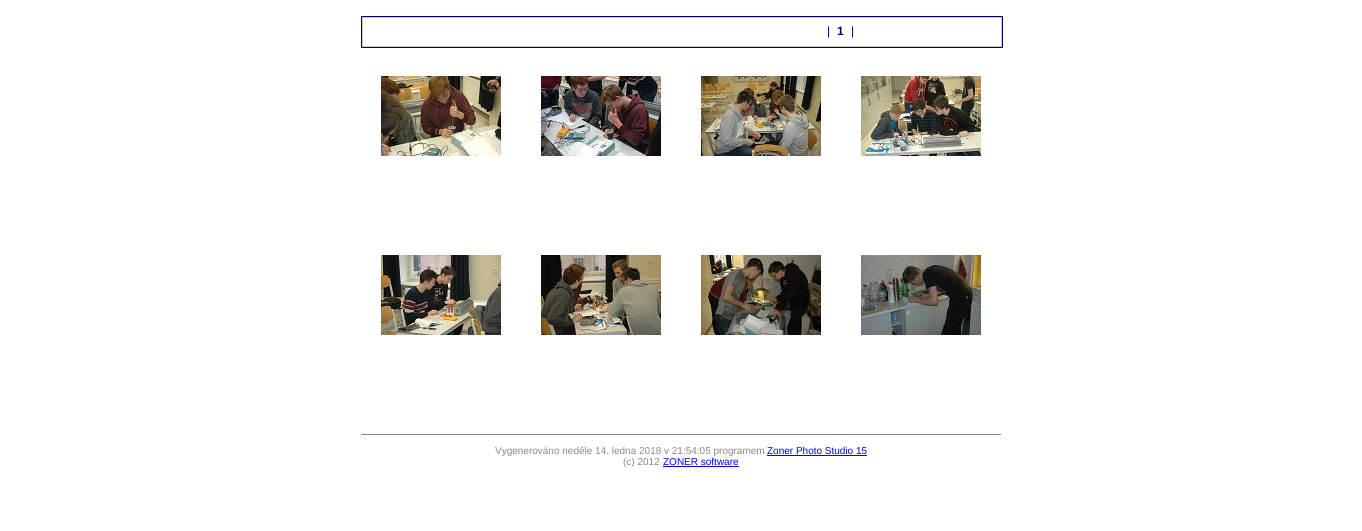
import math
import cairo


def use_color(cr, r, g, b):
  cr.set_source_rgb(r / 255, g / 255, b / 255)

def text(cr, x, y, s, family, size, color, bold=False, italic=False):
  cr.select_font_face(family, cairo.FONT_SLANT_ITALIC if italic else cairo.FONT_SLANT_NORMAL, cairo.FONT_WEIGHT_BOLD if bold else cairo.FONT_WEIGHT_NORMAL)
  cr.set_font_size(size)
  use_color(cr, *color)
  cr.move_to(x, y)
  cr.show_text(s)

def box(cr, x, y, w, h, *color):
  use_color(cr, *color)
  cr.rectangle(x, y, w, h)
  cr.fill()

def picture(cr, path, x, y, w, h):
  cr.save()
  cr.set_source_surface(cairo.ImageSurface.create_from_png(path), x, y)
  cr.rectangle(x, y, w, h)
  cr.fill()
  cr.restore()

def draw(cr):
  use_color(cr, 255, 255, 255)
  cr.paint()
  cr.rectangle(361.5, 16.5, 641, 31)
  use_color(cr, 0, 0, 102)
  cr.set_line_width(1)
  cr.stroke()
  cr.rectangle(362.5, 17.5, 639, 29)
  use_color(cr, 204, 204, 204)
  cr.stroke()
  picture(cr, "img_01.png", 381, 76, 120, 80)
  picture(cr, "img_02.png", 541, 76, 120, 80)
  picture(cr, "img_03.png", 701, 76, 120, 80)
  picture(cr, "img_04.png", 861, 76, 120, 80)
  picture(cr, "img_05.png", 381, 255, 120, 80)
  picture(cr, "img_06.png", 541, 255, 120, 80)
  picture(cr, "img_07.png", 701, 255, 120, 80)
  picture(cr, "img_08.png", 861, 255, 120, 80)
  box(cr, 361, 434, 640, 1, 136, 136, 136)
  box(cr, 767, 455, 100, 1, 0, 0, 238)
  box(cr, 663, 466, 76, 1, 0, 0, 238)
  text(cr, 827, 35, "|", "Liberation Sans", 12, (0, 0, 102))
  text(cr, 837, 35, "1", "Liberation Sans", 12, (0, 0, 102), bold=True)
  text(cr, 851, 35, "|", "Liberation Sans", 12, (0, 0, 102))
  text(cr, 495, 454, "Vygenerováno neděle 14. ledna 2018 v 21:54:05 programem", "Liberation Sans", 10, (136, 136, 136))
  text(cr, 767, 454, "Zoner Photo Studio 15", "Liberation Sans", 10, (0, 0, 238))
  text(cr, 623, 465, "(c) 2012", "Liberation Sans", 10, (136, 136, 136))
  text(cr, 663, 465, "ZONER software", "Liberation Sans", 10, (0, 0, 238))


surface = cairo.ImageSurface(cairo.FORMAT_RGB24, 1362, 531)
cr = cairo.Context(surface)
options = cairo.FontOptions()
options.set_hint_metrics(cairo.HINT_METRICS_OFF)
options.set_hint_style(cairo.HINT_STYLE_NONE)
cr.set_font_options(options)
cr.set_miter_limit(4)
draw(cr)
surface.write_to_png("out.png")
